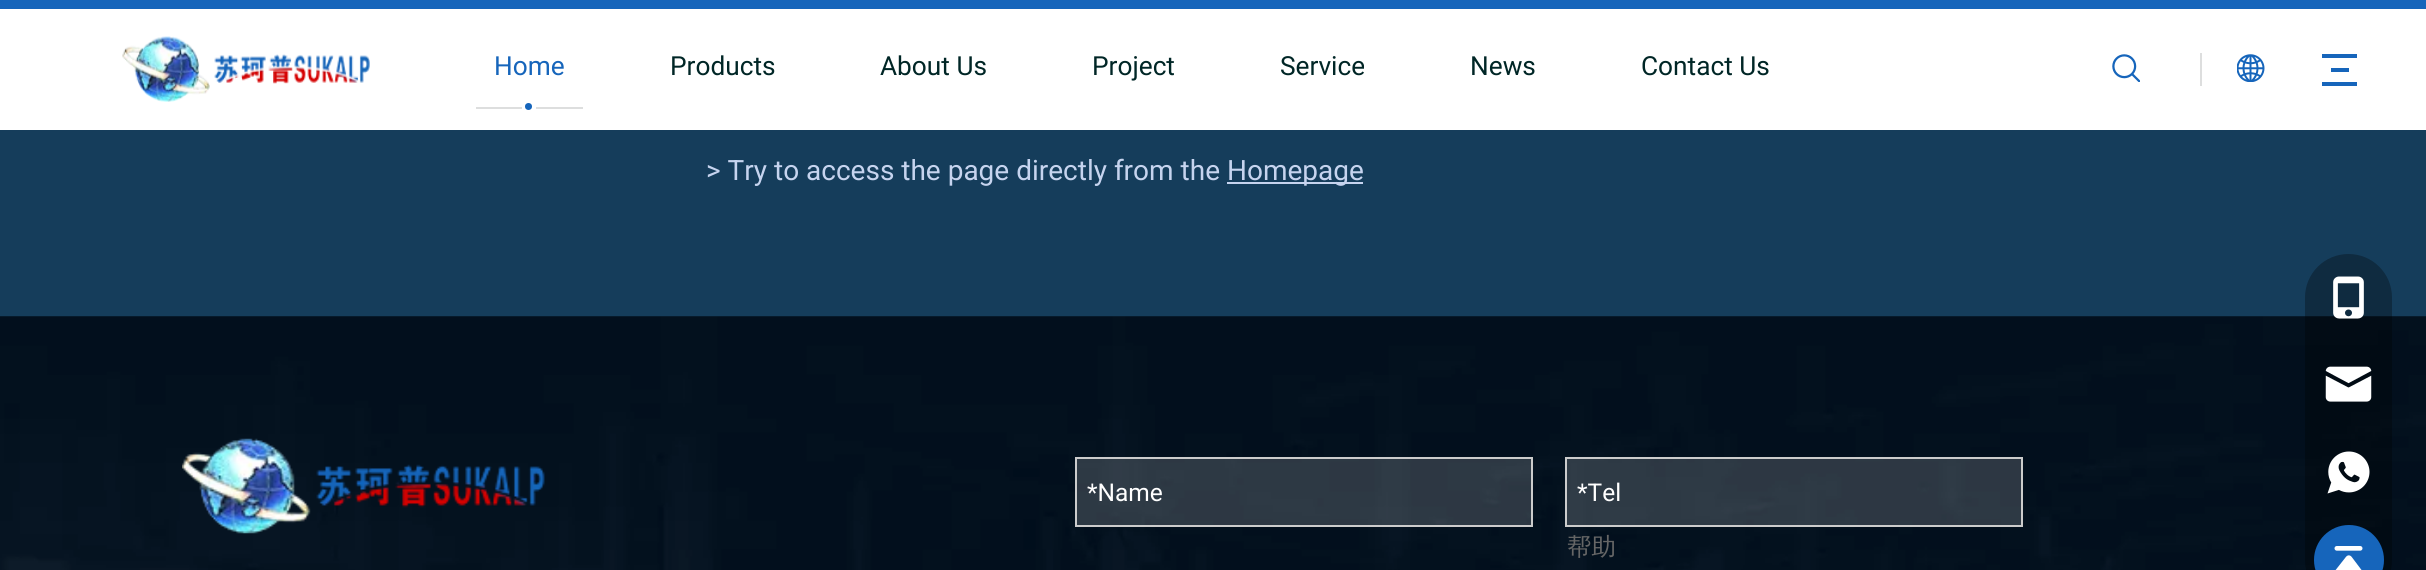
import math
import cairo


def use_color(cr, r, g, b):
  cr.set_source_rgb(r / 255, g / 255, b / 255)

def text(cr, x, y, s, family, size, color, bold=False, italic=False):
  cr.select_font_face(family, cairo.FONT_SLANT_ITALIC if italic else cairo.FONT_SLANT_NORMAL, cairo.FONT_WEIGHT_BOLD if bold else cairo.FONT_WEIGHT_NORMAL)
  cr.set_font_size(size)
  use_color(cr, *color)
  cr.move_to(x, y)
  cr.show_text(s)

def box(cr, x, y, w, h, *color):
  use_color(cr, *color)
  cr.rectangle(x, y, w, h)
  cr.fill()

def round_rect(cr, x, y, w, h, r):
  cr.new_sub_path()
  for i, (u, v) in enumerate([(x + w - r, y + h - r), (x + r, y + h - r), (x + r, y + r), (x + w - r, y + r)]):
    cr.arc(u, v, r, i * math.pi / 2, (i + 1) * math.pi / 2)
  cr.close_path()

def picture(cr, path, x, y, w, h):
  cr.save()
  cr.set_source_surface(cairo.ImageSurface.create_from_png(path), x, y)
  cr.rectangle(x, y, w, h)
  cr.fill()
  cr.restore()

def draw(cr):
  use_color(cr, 21, 61, 91)
  cr.paint()
  box(cr, 0, 9, 2426, 121, 255, 255, 255)
  box(cr, 0, 0, 2426, 9, 22, 101, 187)
  picture(cr, "img_01.png", 122, 36, 248, 66)
  box(cr, 476, 107, 46, 2, 221, 222, 222)
  use_color(cr, 22, 101, 187)
  cr.arc(528.5, 106.5, 3.5, 0, 2 * math.pi)
  cr.fill()
  box(cr, 536, 107, 47, 2, 221, 222, 222)
  box(cr, 2200, 53, 2, 33, 221, 222, 222)
  picture(cr, "img_02.png", 2112, 54, 28, 28)
  picture(cr, "img_03.png", 2237, 54, 28, 28)
  box(cr, 2322, 54, 35, 4, 22, 101, 187)
  box(cr, 2331, 68, 18, 4, 22, 101, 187)
  box(cr, 2322, 82, 35, 4, 22, 101, 187)
  box(cr, 1227, 182, 136, 2, 198, 212, 239)
  picture(cr, "img_04.png", 0, 316, 2426, 254)
  picture(cr, "img_05.png", 182, 438, 363, 96)
  cr.set_source_rgba(1, 1, 1, 0.17)
  cr.rectangle(1076, 458, 456, 68)
  cr.fill_preserve()
  use_color(cr, 204, 204, 204)
  cr.stroke()
  cr.set_source_rgba(1, 1, 1, 0.17)
  cr.rectangle(1566, 458, 456, 68)
  cr.fill_preserve()
  use_color(cr, 204, 204, 204)
  cr.stroke()
  cr.set_source_rgba(0, 0, 0, 0.3)
  round_rect(cr, 2305, 254, 87, 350, 43.5)
  cr.fill()
  picture(cr, "img_06.png", 2333, 276, 31, 43)
  picture(cr, "img_07.png", 2325, 366, 47, 36)
  picture(cr, "img_08.png", 2327, 451, 43, 43)
  use_color(cr, 22, 101, 187)
  cr.arc(2349, 560, 35, 0, 2 * math.pi)
  cr.fill()
  picture(cr, "img_09.png", 2334, 546, 29, 24)
  text(cr, 494, 75, "Home", "Roboto", 26.25, (22, 101, 187))
  text(cr, 670, 75, "Products", "Roboto", 26.25, (0, 38, 38))
  text(cr, 880, 75, "About Us", "Roboto", 26.25, (0, 38, 38))
  text(cr, 1092, 75, "Project", "Roboto", 26.25, (0, 38, 38))
  text(cr, 1280, 75, "Service", "Roboto", 26.25, (0, 38, 38))
  text(cr, 1470, 75, "News", "Roboto", 26.25, (0, 38, 38))
  text(cr, 1641, 75, "Contact Us", "Roboto", 26.25, (0, 38, 38))
  text(cr, 706, 180, "> Try to access the page directly from the", "Roboto", 28, (198, 212, 239))
  text(cr, 1227, 180, "Homepage", "Roboto", 28, (198, 212, 239))
  text(cr, 1087, 501, "*Name", "Roboto", 24.5, (255, 255, 255))
  text(cr, 1577, 501, "*Tel", "Roboto", 24.5, (255, 255, 255))
  text(cr, 1567, 555, "帮助", "WenQuanYi Zen Hei Medium", 24.5, (102, 102, 102))


surface = cairo.ImageSurface(cairo.FORMAT_RGB24, 2426, 570)
cr = cairo.Context(surface)
options = cairo.FontOptions()
options.set_hint_metrics(cairo.HINT_METRICS_OFF)
options.set_hint_style(cairo.HINT_STYLE_NONE)
cr.set_font_options(options)
cr.set_miter_limit(4)
draw(cr)
surface.write_to_png("out.png")
